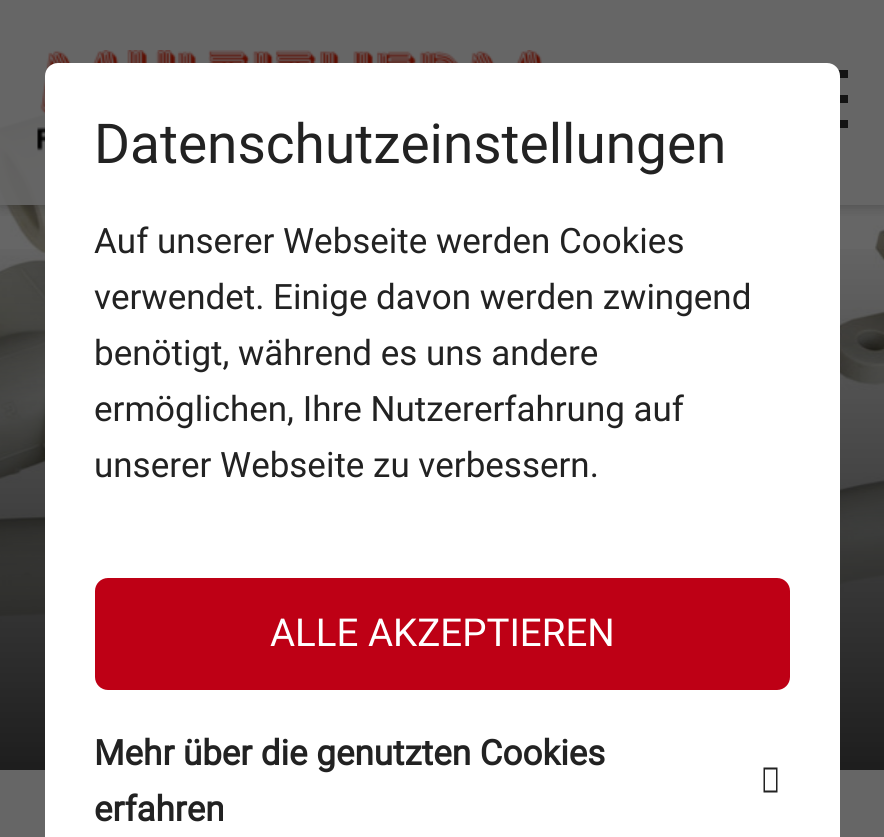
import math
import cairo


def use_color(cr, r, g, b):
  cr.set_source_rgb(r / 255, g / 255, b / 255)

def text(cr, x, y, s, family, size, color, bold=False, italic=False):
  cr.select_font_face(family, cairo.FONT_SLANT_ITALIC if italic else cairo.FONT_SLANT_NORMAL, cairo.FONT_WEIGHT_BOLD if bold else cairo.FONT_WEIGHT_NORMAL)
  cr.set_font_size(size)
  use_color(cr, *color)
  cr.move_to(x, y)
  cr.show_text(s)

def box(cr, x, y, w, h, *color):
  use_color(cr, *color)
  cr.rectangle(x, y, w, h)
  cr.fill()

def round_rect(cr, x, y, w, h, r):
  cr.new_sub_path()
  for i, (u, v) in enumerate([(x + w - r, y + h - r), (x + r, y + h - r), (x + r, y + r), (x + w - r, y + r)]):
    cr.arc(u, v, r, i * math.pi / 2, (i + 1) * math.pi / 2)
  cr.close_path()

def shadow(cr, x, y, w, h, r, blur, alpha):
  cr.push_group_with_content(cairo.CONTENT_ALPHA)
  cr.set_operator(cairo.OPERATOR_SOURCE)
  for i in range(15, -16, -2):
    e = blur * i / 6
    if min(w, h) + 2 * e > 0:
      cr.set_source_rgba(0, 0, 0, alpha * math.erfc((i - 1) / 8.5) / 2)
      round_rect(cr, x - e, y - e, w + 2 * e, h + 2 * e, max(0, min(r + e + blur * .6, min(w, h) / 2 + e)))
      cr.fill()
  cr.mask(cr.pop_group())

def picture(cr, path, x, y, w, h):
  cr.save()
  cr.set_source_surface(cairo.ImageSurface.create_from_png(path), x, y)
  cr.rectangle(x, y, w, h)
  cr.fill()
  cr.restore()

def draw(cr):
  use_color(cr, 102, 102, 102)
  cr.paint()
  picture(cr, "img_02.png", 0, 74, 884, 627)
  cr.save()
  cr.rectangle(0, 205, 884, 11)
  cr.clip()
  use_color(cr, 0, 0, 0)
  shadow(cr, 0, 0, 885, 205, 0, 7.5, 0.26)
  cr.restore()
  cr.set_source_rgba(0.4, 0.4, 0.4, 0.9)
  cr.rectangle(0, 74, 820, 131)
  cr.fill()
  picture(cr, "img_01.png", 37, 50, 505, 102)
  box(cr, 838, 70, 10, 8, 20, 20, 20)
  box(cr, 840, 95, 8, 8, 20, 20, 20)
  box(cr, 840, 120, 8, 8, 20, 20, 20)
  gradient = cairo.LinearGradient(443, 230, 443, 770)
  gradient.add_color_stop_rgba(0, 0, 0, 0, 0)
  gradient.add_color_stop_rgba(1, 0, 0, 0, 0.71)
  cr.set_source(gradient)
  cr.rectangle(0, 249, 884, 521)
  cr.fill()
  use_color(cr, 255, 255, 255)
  round_rect(cr, 45, 63, 795, 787, 13)
  cr.fill()
  use_color(cr, 190, 0, 21)
  round_rect(cr, 95, 578, 695, 112, 13)
  cr.fill()
  use_color(cr, 34, 34, 34)
  cr.new_path()
  cr.move_to(763.5, 792.5)
  cr.line_to(763.5, 767.5)
  cr.line_to(777.5, 767.5)
  cr.line_to(777.5, 792.5)
  cr.close_path()
  cr.move_to(765, 790.5)
  cr.line_to(776, 790.5)
  cr.line_to(776, 769.5)
  cr.line_to(765, 769.5)
  cr.close_path()
  cr.fill()
  text(cr, 94, 163, "Datenschutzeinstellungen", "Roboto", 55, (34, 34, 34))
  text(cr, 94, 253, "Auf unserer Webseite werden Cookies", "Roboto", 35, (34, 34, 34))
  text(cr, 94, 309, "verwendet. Einige davon werden zwingend", "Roboto", 35, (34, 34, 34))
  text(cr, 94, 365, "benötigt, während es uns andere", "Roboto", 35, (34, 34, 34))
  text(cr, 94, 421, "ermöglichen, Ihre Nutzererfahrung auf", "Roboto", 35, (34, 34, 34))
  text(cr, 94, 477, "unserer Webseite zu verbessern.", "Roboto", 35, (34, 34, 34))
  text(cr, 270, 646, "ALLE AKZEPTIEREN", "Roboto", 38.5, (255, 255, 255))
  text(cr, 94, 765, "Mehr über die genutzten Cookies", "Roboto", 35, (34, 34, 34), bold=True)
  text(cr, 94, 821, "erfahren", "Roboto", 35, (34, 34, 34), bold=True)


surface = cairo.ImageSurface(cairo.FORMAT_RGB24, 884, 837)
cr = cairo.Context(surface)
options = cairo.FontOptions()
options.set_hint_metrics(cairo.HINT_METRICS_OFF)
options.set_hint_style(cairo.HINT_STYLE_NONE)
cr.set_font_options(options)
cr.set_miter_limit(4)
draw(cr)
surface.write_to_png("out.png")
